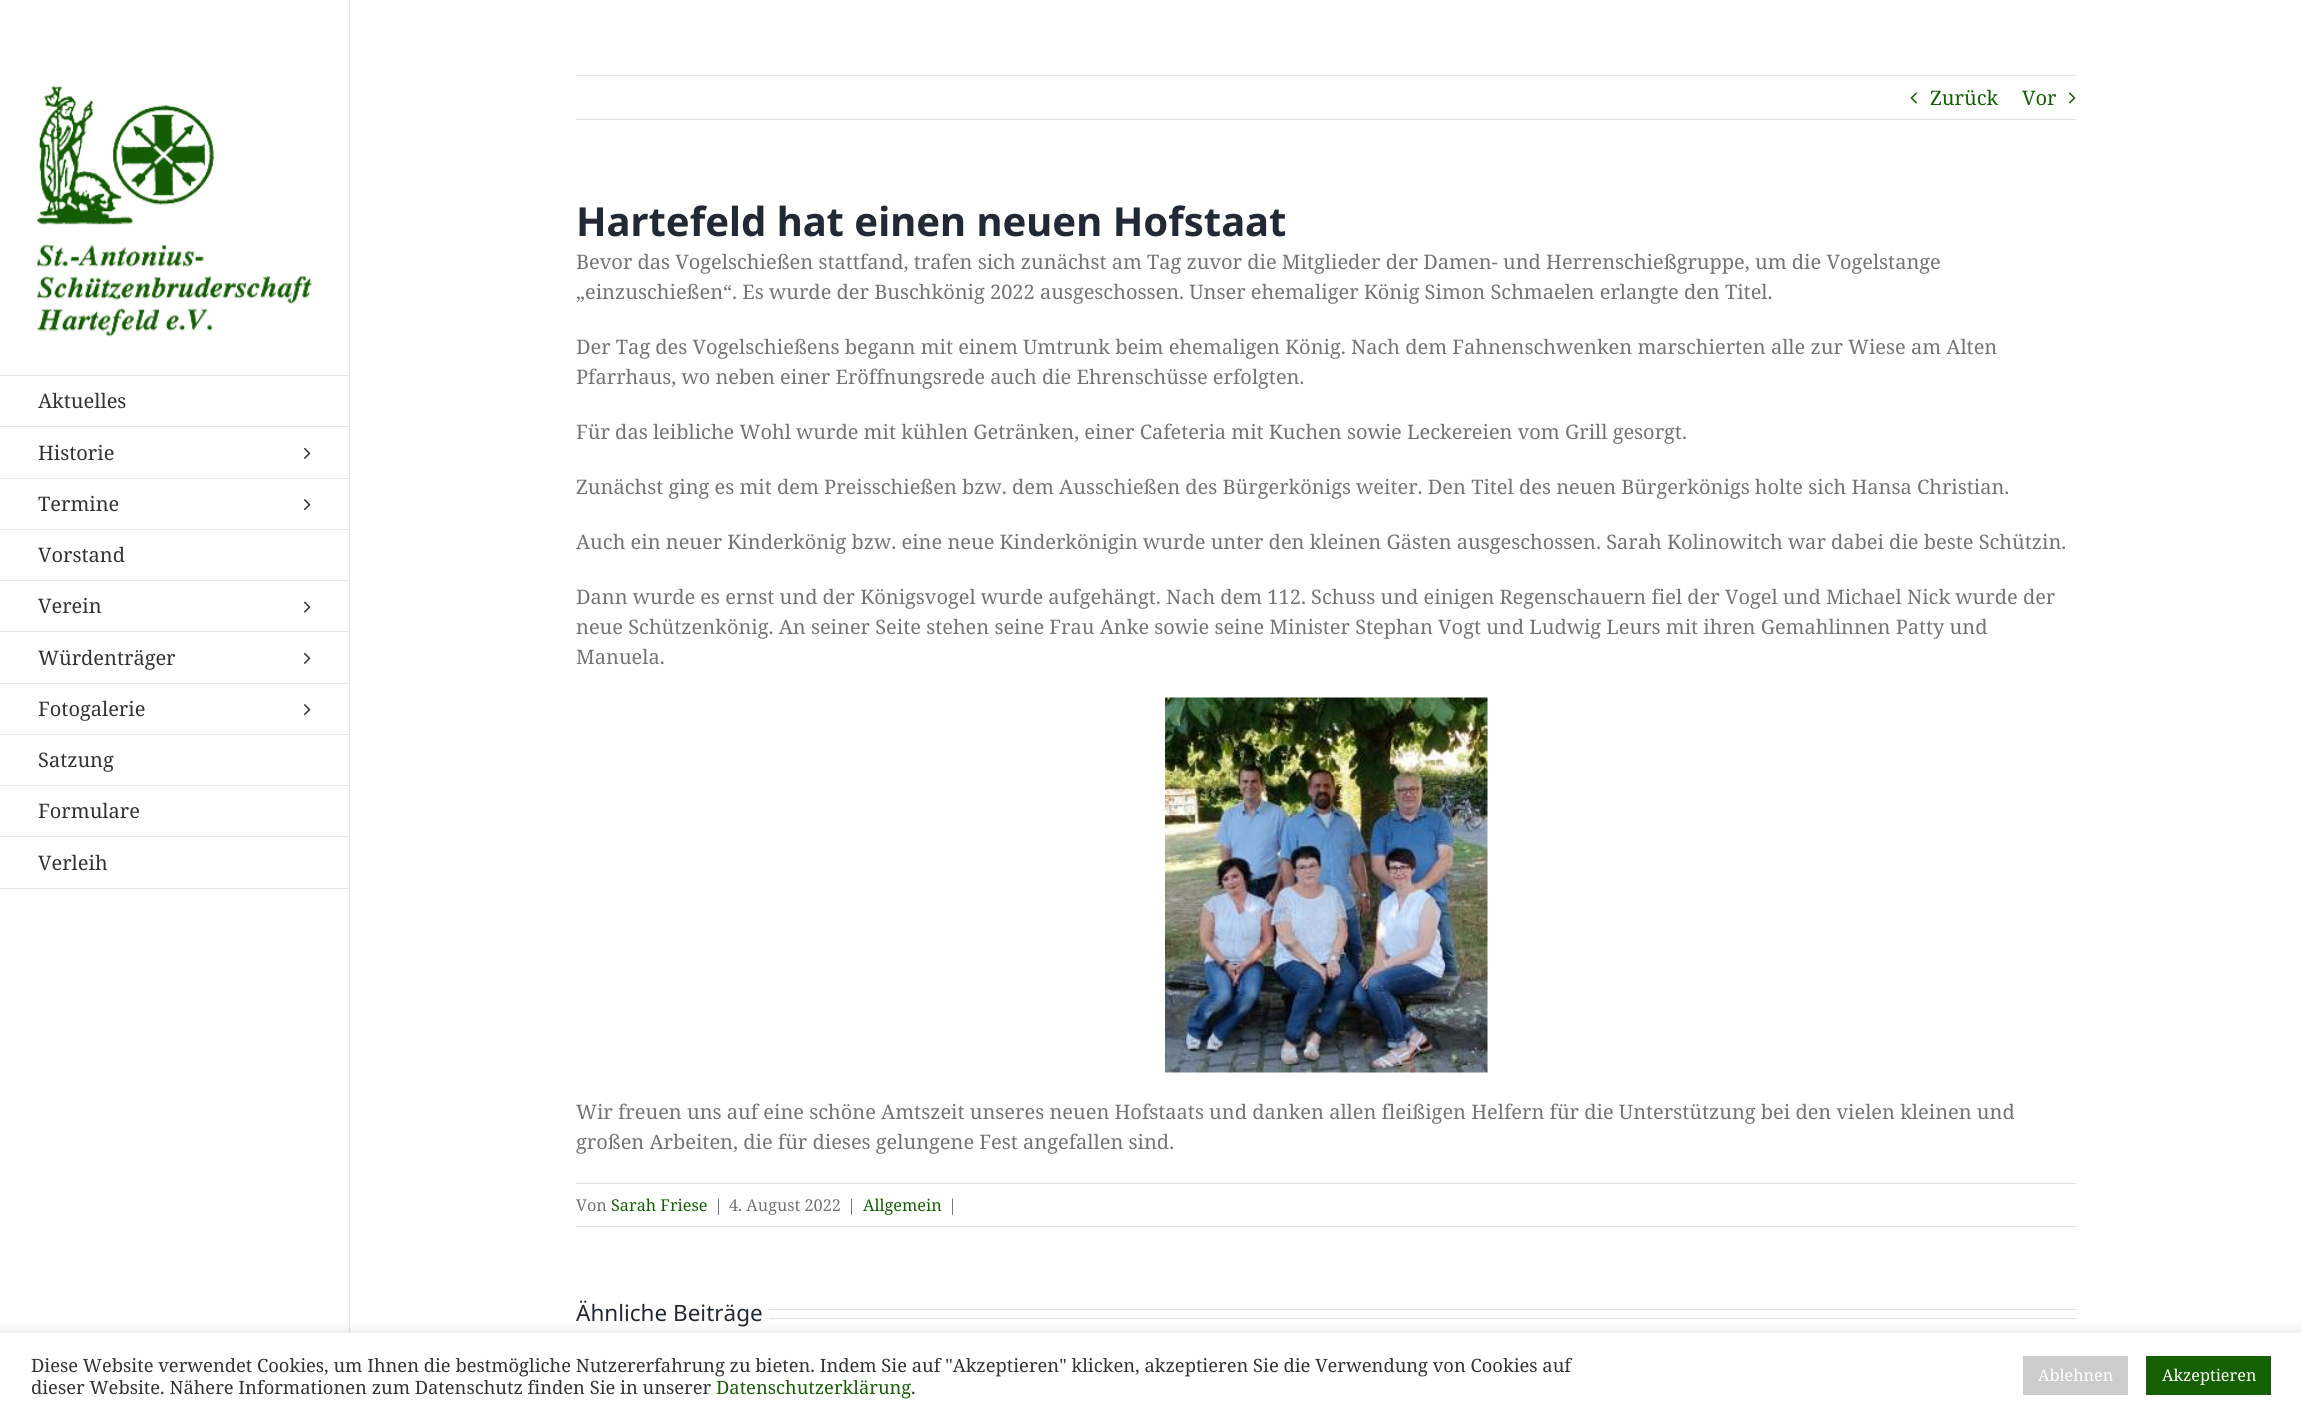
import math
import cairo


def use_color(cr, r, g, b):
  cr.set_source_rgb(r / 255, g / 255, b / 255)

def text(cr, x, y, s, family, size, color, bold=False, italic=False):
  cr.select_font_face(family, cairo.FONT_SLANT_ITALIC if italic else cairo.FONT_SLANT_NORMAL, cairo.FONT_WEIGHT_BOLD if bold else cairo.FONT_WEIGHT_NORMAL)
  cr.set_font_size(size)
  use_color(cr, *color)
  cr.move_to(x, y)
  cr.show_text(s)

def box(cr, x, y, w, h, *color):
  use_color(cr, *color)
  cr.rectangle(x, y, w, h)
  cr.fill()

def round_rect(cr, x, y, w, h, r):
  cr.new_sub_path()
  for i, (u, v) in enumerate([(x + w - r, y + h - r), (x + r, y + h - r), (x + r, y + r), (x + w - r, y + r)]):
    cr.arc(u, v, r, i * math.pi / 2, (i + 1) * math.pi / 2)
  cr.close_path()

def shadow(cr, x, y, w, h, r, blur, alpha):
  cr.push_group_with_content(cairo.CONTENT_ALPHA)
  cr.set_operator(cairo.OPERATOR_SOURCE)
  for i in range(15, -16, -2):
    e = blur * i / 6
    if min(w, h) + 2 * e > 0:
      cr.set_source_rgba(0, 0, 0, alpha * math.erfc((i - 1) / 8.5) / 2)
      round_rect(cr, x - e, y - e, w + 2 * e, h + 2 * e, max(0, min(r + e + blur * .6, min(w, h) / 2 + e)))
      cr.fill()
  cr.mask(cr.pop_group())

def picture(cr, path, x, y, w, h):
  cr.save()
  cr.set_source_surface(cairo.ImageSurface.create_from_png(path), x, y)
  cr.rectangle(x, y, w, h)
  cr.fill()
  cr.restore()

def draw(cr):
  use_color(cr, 255, 255, 255)
  cr.paint()
  picture(cr, "img_01.png", 37, 85, 275, 252)
  box(cr, 0, 375, 349, 1, 229, 229, 229)
  box(cr, 0, 426, 349, 1, 229, 229, 229)
  box(cr, 0, 478, 349, 1, 229, 229, 229)
  picture(cr, "img_02.png", 303, 447, 8, 12)
  box(cr, 0, 529, 349, 1, 229, 229, 229)
  picture(cr, "img_03.png", 303, 499, 8, 12)
  box(cr, 0, 580, 349, 1, 229, 229, 229)
  box(cr, 0, 631, 349, 1, 229, 229, 229)
  picture(cr, "img_04.png", 303, 601, 8, 12)
  box(cr, 0, 683, 349, 1, 229, 229, 229)
  picture(cr, "img_02.png", 303, 652, 8, 12)
  box(cr, 0, 734, 349, 1, 229, 229, 229)
  picture(cr, "img_03.png", 303, 704, 8, 12)
  box(cr, 0, 785, 349, 1, 229, 229, 229)
  box(cr, 0, 836, 349, 1, 229, 229, 229)
  box(cr, 0, 888, 349, 1, 229, 229, 229)
  box(cr, 349, 0, 1, 1333, 229, 229, 229)
  box(cr, 576, 75, 1500, 1, 224, 222, 222)
  box(cr, 576, 119, 1500, 1, 224, 222, 222)
  picture(cr, "img_05.png", 1910, 92, 7, 12)
  picture(cr, "img_06.png", 2068, 92, 8, 12)
  picture(cr, "img_07.png", 1165, 697, 323, 376)
  box(cr, 576, 1183, 1500, 1, 224, 222, 222)
  box(cr, 576, 1226, 1500, 1, 224, 222, 222)
  box(cr, 769, 1309, 1307, 1, 224, 222, 222)
  box(cr, 769, 1318, 1307, 1, 224, 222, 222)
  use_color(cr, 172, 171, 171)
  shadow(cr, 0, 1331, 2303, 87, 0, 6, 0.3)
  box(cr, 0, 1333, 2302, 85, 255, 255, 255)
  box(cr, 2023, 1356, 105, 39, 204, 204, 204)
  box(cr, 2146, 1356, 125, 39, 21, 96, 3)
  text(cr, 38, 408, "Aktuelles", "Noto Serif", 20, (51, 51, 51))
  text(cr, 38, 460, "Historie", "Noto Serif", 20, (51, 51, 51))
  text(cr, 38, 511, "Termine", "Noto Serif", 20, (51, 51, 51))
  text(cr, 38, 562, "Vorstand", "Noto Serif", 20, (51, 51, 51))
  text(cr, 38, 613, "Verein", "Noto Serif", 20, (51, 51, 51))
  text(cr, 38, 665, "Würdenträger", "Noto Serif", 20, (51, 51, 51))
  text(cr, 38, 716, "Fotogalerie", "Noto Serif", 20, (51, 51, 51))
  text(cr, 38, 767, "Satzung", "Noto Serif", 20, (51, 51, 51))
  text(cr, 38, 818, "Formulare", "Noto Serif", 20, (51, 51, 51))
  text(cr, 38, 870, "Verleih", "Noto Serif", 20, (51, 51, 51))
  text(cr, 1930, 105, "Zurück", "Noto Serif", 20, (21, 96, 3))
  text(cr, 2022, 105, "Vor", "Noto Serif", 20, (21, 96, 3))
  text(cr, 576, 236, "Hartefeld hat einen neuen Hofstaat", "Noto Sans", 40, (33, 41, 52), bold=True)
  text(cr, 576, 269, "Bevor das Vogelschießen stattfand, trafen sich zunächst am Tag zuvor die Mitglieder der Damen- und Herrenschießgruppe, um die Vogelstange", "Noto Serif", 20, (116, 116, 116))
  text(cr, 576, 299, "„einzuschießen“. Es wurde der Buschkönig 2022 ausgeschossen. Unser ehemaliger König Simon Schmaelen erlangte den Titel.", "Noto Serif", 20, (116, 116, 116))
  text(cr, 576, 354, "Der Tag des Vogelschießens begann mit einem Umtrunk beim ehemaligen König. Nach dem Fahnenschwenken marschierten alle zur Wiese am Alten", "Noto Serif", 20, (116, 116, 116))
  text(cr, 576, 384, "Pfarrhaus, wo neben einer Eröffnungsrede auch die Ehrenschüsse erfolgten.", "Noto Serif", 20, (116, 116, 116))
  text(cr, 576, 439, "Für das leibliche Wohl wurde mit kühlen Getränken, einer Cafeteria mit Kuchen sowie Leckereien vom Grill gesorgt.", "Noto Serif", 20, (116, 116, 116))
  text(cr, 576, 494, "Zunächst ging es mit dem Preisschießen bzw. dem Ausschießen des Bürgerkönigs weiter. Den Titel des neuen Bürgerkönigs holte sich Hansa Christian.", "Noto Serif", 20, (116, 116, 116))
  text(cr, 576, 549, "Auch ein neuer Kinderkönig bzw. eine neue Kinderkönigin wurde unter den kleinen Gästen ausgeschossen. Sarah Kolinowitch war dabei die beste Schützin.", "Noto Serif", 20, (116, 116, 116))
  text(cr, 576, 604, "Dann wurde es ernst und der Königsvogel wurde aufgehängt. Nach dem 112. Schuss und einigen Regenschauern fiel der Vogel und Michael Nick wurde der", "Noto Serif", 20, (116, 116, 116))
  text(cr, 576, 634, "neue Schützenkönig. An seiner Seite stehen seine Frau Anke sowie seine Minister Stephan Vogt und Ludwig Leurs mit ihren Gemahlinnen Patty und", "Noto Serif", 20, (116, 116, 116))
  text(cr, 576, 664, "Manuela.", "Noto Serif", 20, (116, 116, 116))
  text(cr, 576, 1119, "Wir freuen uns auf eine schöne Amtszeit unseres neuen Hofstaats und danken allen fleißigen Helfern für die Unterstützung bei den vielen kleinen und", "Noto Serif", 20, (116, 116, 116))
  text(cr, 576, 1149, "großen Arbeiten, die für dieses gelungene Fest angefallen sind.", "Noto Serif", 20, (116, 116, 116))
  text(cr, 576, 1211, "Von", "Noto Serif", 16.25, (116, 116, 116))
  text(cr, 611, 1211, "Sarah Friese", "Noto Serif", 16.25, (21, 96, 3))
  text(cr, 714, 1211, "|", "Noto Serif", 16.25, (116, 116, 116))
  text(cr, 729, 1211, "4. August 2022", "Noto Serif", 16.25, (116, 116, 116))
  text(cr, 847, 1211, "|", "Noto Serif", 16.25, (116, 116, 116))
  text(cr, 863, 1211, "Allgemein", "Noto Serif", 16.25, (21, 96, 3))
  text(cr, 948, 1211, "|", "Noto Serif", 16.25, (116, 116, 116))
  text(cr, 576, 1321, "Ähnliche Beiträge", "Noto Sans", 22.5, (33, 41, 52))
  text(cr, 31, 1372, "Diese Website verwendet Cookies, um Ihnen die bestmögliche Nutzererfahrung zu bieten. Indem Sie auf \"Akzeptieren\" klicken, akzeptieren Sie die Verwendung von Cookies auf", "Noto Serif", 18.33, (51, 51, 51))
  text(cr, 31, 1394, "dieser Website. Nähere Informationen zum Datenschutz finden Sie in unserer", "Noto Serif", 18.33, (51, 51, 51))
  text(cr, 716, 1394, "Datenschutzerklärung", "Noto Serif", 18.33, (21, 96, 3))
  text(cr, 911, 1394, ".", "Noto Serif", 18.33, (51, 51, 51))
  text(cr, 2038, 1381, "Ablehnen", "Noto Serif", 16.25, (255, 255, 255))
  text(cr, 2162, 1381, "Akzeptieren", "Noto Serif", 16.25, (255, 255, 255))


surface = cairo.ImageSurface(cairo.FORMAT_RGB24, 2302, 1418)
cr = cairo.Context(surface)
options = cairo.FontOptions()
options.set_hint_metrics(cairo.HINT_METRICS_OFF)
options.set_hint_style(cairo.HINT_STYLE_NONE)
cr.set_font_options(options)
cr.set_miter_limit(4)
draw(cr)
surface.write_to_png("out.png")
